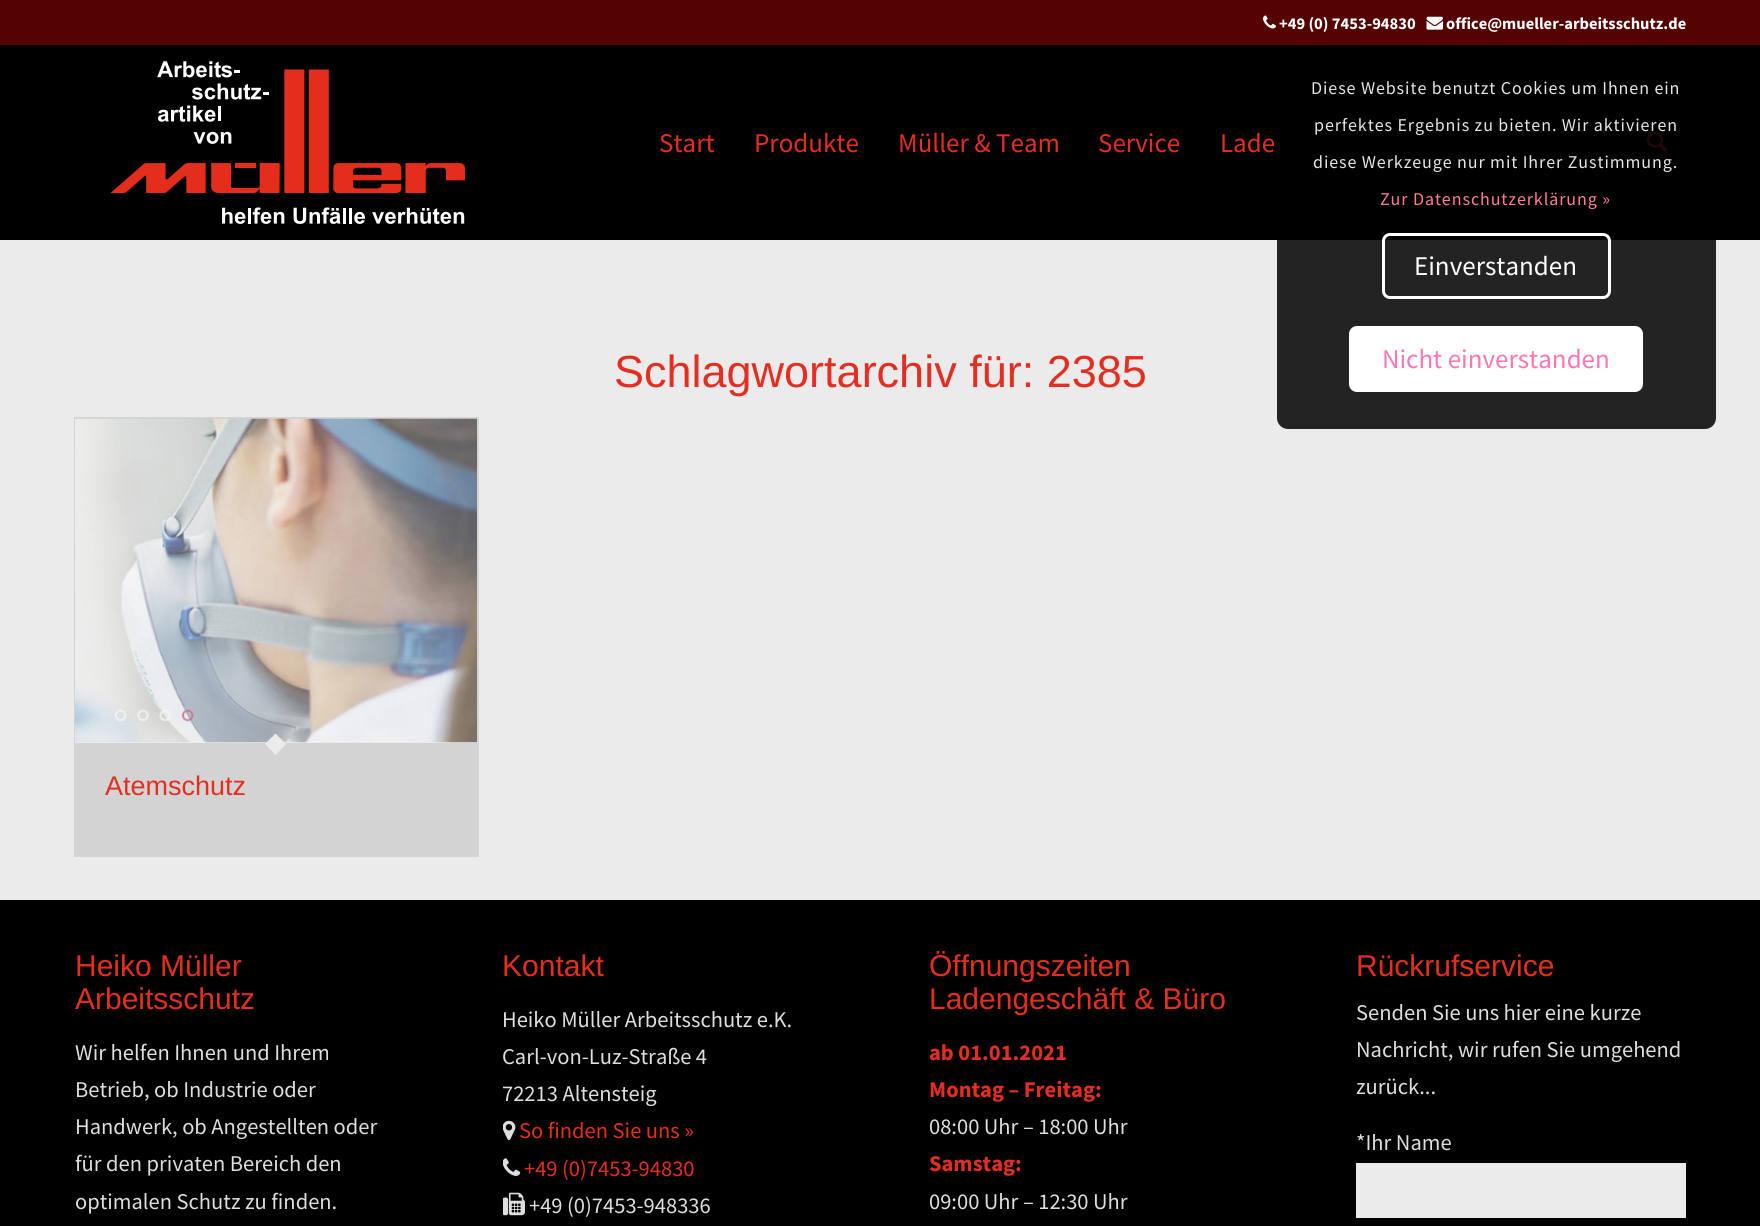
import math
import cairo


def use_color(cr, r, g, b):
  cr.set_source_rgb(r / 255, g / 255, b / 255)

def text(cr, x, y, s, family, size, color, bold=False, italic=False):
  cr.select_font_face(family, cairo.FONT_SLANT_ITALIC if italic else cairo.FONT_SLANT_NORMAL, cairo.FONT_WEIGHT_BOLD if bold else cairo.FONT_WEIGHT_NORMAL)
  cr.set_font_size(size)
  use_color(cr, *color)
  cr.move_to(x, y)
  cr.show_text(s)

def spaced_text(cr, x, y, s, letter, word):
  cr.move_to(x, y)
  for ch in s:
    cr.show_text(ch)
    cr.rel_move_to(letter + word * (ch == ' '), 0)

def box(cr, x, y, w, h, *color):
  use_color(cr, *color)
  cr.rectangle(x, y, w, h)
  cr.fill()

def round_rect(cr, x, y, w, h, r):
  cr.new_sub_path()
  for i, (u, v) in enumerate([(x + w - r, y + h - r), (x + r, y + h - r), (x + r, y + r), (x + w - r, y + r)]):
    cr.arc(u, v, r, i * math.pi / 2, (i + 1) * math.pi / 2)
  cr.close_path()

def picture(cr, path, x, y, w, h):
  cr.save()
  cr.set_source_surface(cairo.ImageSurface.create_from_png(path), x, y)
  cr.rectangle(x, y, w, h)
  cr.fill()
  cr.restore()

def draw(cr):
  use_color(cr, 0, 0, 0)
  cr.paint()
  box(cr, 0, 0, 1760, 45, 84, 2, 2)
  picture(cr, "img_01.png", 1263, 15, 13, 14)
  picture(cr, "img_02.png", 1426, 16, 17, 14)
  picture(cr, "img_03.png", 110, 61, 355, 163)
  picture(cr, "img_04.png", 1647, 131, 20, 21)
  box(cr, 0, 240, 1760, 660, 235, 235, 235)
  cr.rectangle(75, 418, 403, 438)
  use_color(cr, 212, 212, 212)
  cr.stroke()
  box(cr, 75, 419, 1, 324, 235, 235, 235)
  picture(cr, "img_05.png", 75, 418, 402, 325)
  box(cr, 76, 743, 401, 112, 211, 211, 211)
  use_color(cr, 235, 235, 235)
  cr.new_path()
  cr.move_to(275.5, 733.5)
  cr.line_to(286, 744)
  cr.line_to(275.5, 755)
  cr.line_to(265, 744)
  cr.close_path()
  cr.fill()
  picture(cr, "img_06.png", 503, 1120, 13, 21)
  picture(cr, "img_07.png", 503, 1158, 18, 18)
  picture(cr, "img_08.png", 503, 1192, 22, 24)
  box(cr, 1356, 1163, 330, 55, 235, 235, 235)
  cr.set_source_rgba(0, 0, 0, 0.85)
  round_rect(cr, 1277, 45, 439, 384, 11)
  cr.fill()
  round_rect(cr, 1383.5, 234.5, 226, 63, 6.5)
  use_color(cr, 255, 255, 255)
  cr.set_line_width(3)
  cr.stroke()
  round_rect(cr, 1350.5, 327.5, 291, 63, 6.5)
  cr.fill_preserve()
  cr.stroke()
  text(cr, 1279, 29, "+49 (0) 7453-94830", "Source Sans Pro", 16.5, (255, 255, 255), bold=True)
  text(cr, 1446, 29, "office@mueller-arbeitsschutz.de", "Source Sans Pro", 16.5, (255, 255, 255), bold=True)
  text(cr, 659, 152, "Start", "Source Sans Pro", 27, (228, 46, 33))
  text(cr, 754, 152, "Produkte", "Source Sans Pro", 27, (228, 46, 33))
  text(cr, 898, 152, "Müller & Team", "Source Sans Pro", 27, (228, 46, 33))
  text(cr, 1098, 152, "Service", "Source Sans Pro", 27, (228, 46, 33))
  text(cr, 1220, 152, "Lade", "Source Sans Pro", 27, (228, 46, 33))
  text(cr, 614, 387, "Schlagwortarchiv für: 2385", "Arimo", 45, (228, 46, 33))
  text(cr, 105, 795, "Atemschutz", "Arimo", 27, (228, 46, 33))
  text(cr, 75, 976, "Heiko Müller", "Arimo", 30, (228, 46, 33))
  text(cr, 75, 1009, "Arbeitsschutz", "Arimo", 30, (228, 46, 33))
  text(cr, 75, 1060, "Wir helfen Ihnen und Ihrem", "Source Sans Pro", 22.5, (222, 222, 222))
  text(cr, 75, 1097, "Betrieb, ob Industrie oder", "Source Sans Pro", 22.5, (222, 222, 222))
  text(cr, 75, 1134, "Handwerk, ob Angestellten oder", "Source Sans Pro", 22.5, (222, 222, 222))
  text(cr, 75, 1171, "für den privaten Bereich den", "Source Sans Pro", 22.5, (222, 222, 222))
  text(cr, 75, 1209, "optimalen Schutz zu finden.", "Source Sans Pro", 22.5, (222, 222, 222))
  text(cr, 502, 976, "Kontakt", "Arimo", 30, (228, 46, 33))
  text(cr, 502, 1027, "Heiko Müller Arbeitsschutz e.K.", "Source Sans Pro", 22.5, (222, 222, 222))
  text(cr, 502, 1064, "Carl-von-Luz-Straße 4", "Source Sans Pro", 22.5, (222, 222, 222))
  text(cr, 502, 1101, "72213 Altensteig", "Source Sans Pro", 22.5, (222, 222, 222))
  text(cr, 519, 1138, "So finden Sie uns »", "Source Sans Pro", 22.5, (228, 46, 33))
  text(cr, 524, 1176, "+49 (0)7453-94830", "Source Sans Pro", 22.5, (228, 46, 33))
  text(cr, 529, 1213, "+49 (0)7453-948336", "Source Sans Pro", 22.5, (222, 222, 222))
  text(cr, 929, 976, "Öffnungszeiten", "Arimo", 30, (228, 46, 33))
  text(cr, 929, 1009, "Ladengeschäft & Büro", "Arimo", 30, (228, 46, 33))
  text(cr, 929, 1060, "ab 01.01.2021", "Source Sans Pro", 22.5, (228, 46, 33), bold=True)
  text(cr, 929, 1097, "Montag – Freitag:", "Source Sans Pro", 22.5, (228, 46, 33), bold=True)
  text(cr, 929, 1134, "08:00 Uhr – 18:00 Uhr", "Source Sans Pro", 22.5, (222, 222, 222))
  text(cr, 929, 1171, "Samstag:", "Source Sans Pro", 22.5, (228, 46, 33), bold=True)
  text(cr, 929, 1209, "09:00 Uhr – 12:30 Uhr", "Source Sans Pro", 22.5, (222, 222, 222))
  text(cr, 1356, 976, "Rückrufservice", "Arimo", 30, (228, 46, 33))
  text(cr, 1356, 1020, "Senden Sie uns hier eine kurze", "Source Sans Pro", 22.5, (222, 222, 222))
  text(cr, 1356, 1057, "Nachricht, wir rufen Sie umgehend", "Source Sans Pro", 22.5, (222, 222, 222))
  text(cr, 1356, 1094, "zurück...", "Source Sans Pro", 22.5, (222, 222, 222))
  text(cr, 1356, 1150, "*Ihr Name", "Source Sans Pro", 22.5, (222, 222, 222))
  cr.set_font_size(18)
  use_color(cr, 230, 230, 230)
  spaced_text(cr, 1311, 94, "Diese Website benutzt Cookies um Ihnen ein", 0.9, 0)
  spaced_text(cr, 1314, 131, "perfektes Ergebnis zu bieten. Wir aktivieren", 0.9, 0)
  spaced_text(cr, 1313, 168, "diese Werkzeuge nur mit Ihrer Zustimmung.", 0.9, 0)
  use_color(cr, 255, 127, 149)
  spaced_text(cr, 1380, 205, "Zur Datenschutzerklärung »", 0.9, 0)
  text(cr, 1414, 275, "Einverstanden", "Source Sans Pro", 27, (255, 255, 255))
  text(cr, 1382, 368, "Nicht einverstanden", "Source Sans Pro", 27, (255, 117, 181))


surface = cairo.ImageSurface(cairo.FORMAT_RGB24, 1760, 1226)
cr = cairo.Context(surface)
options = cairo.FontOptions()
options.set_hint_metrics(cairo.HINT_METRICS_OFF)
options.set_hint_style(cairo.HINT_STYLE_NONE)
cr.set_font_options(options)
cr.set_miter_limit(4)
draw(cr)
surface.write_to_png("out.png")
